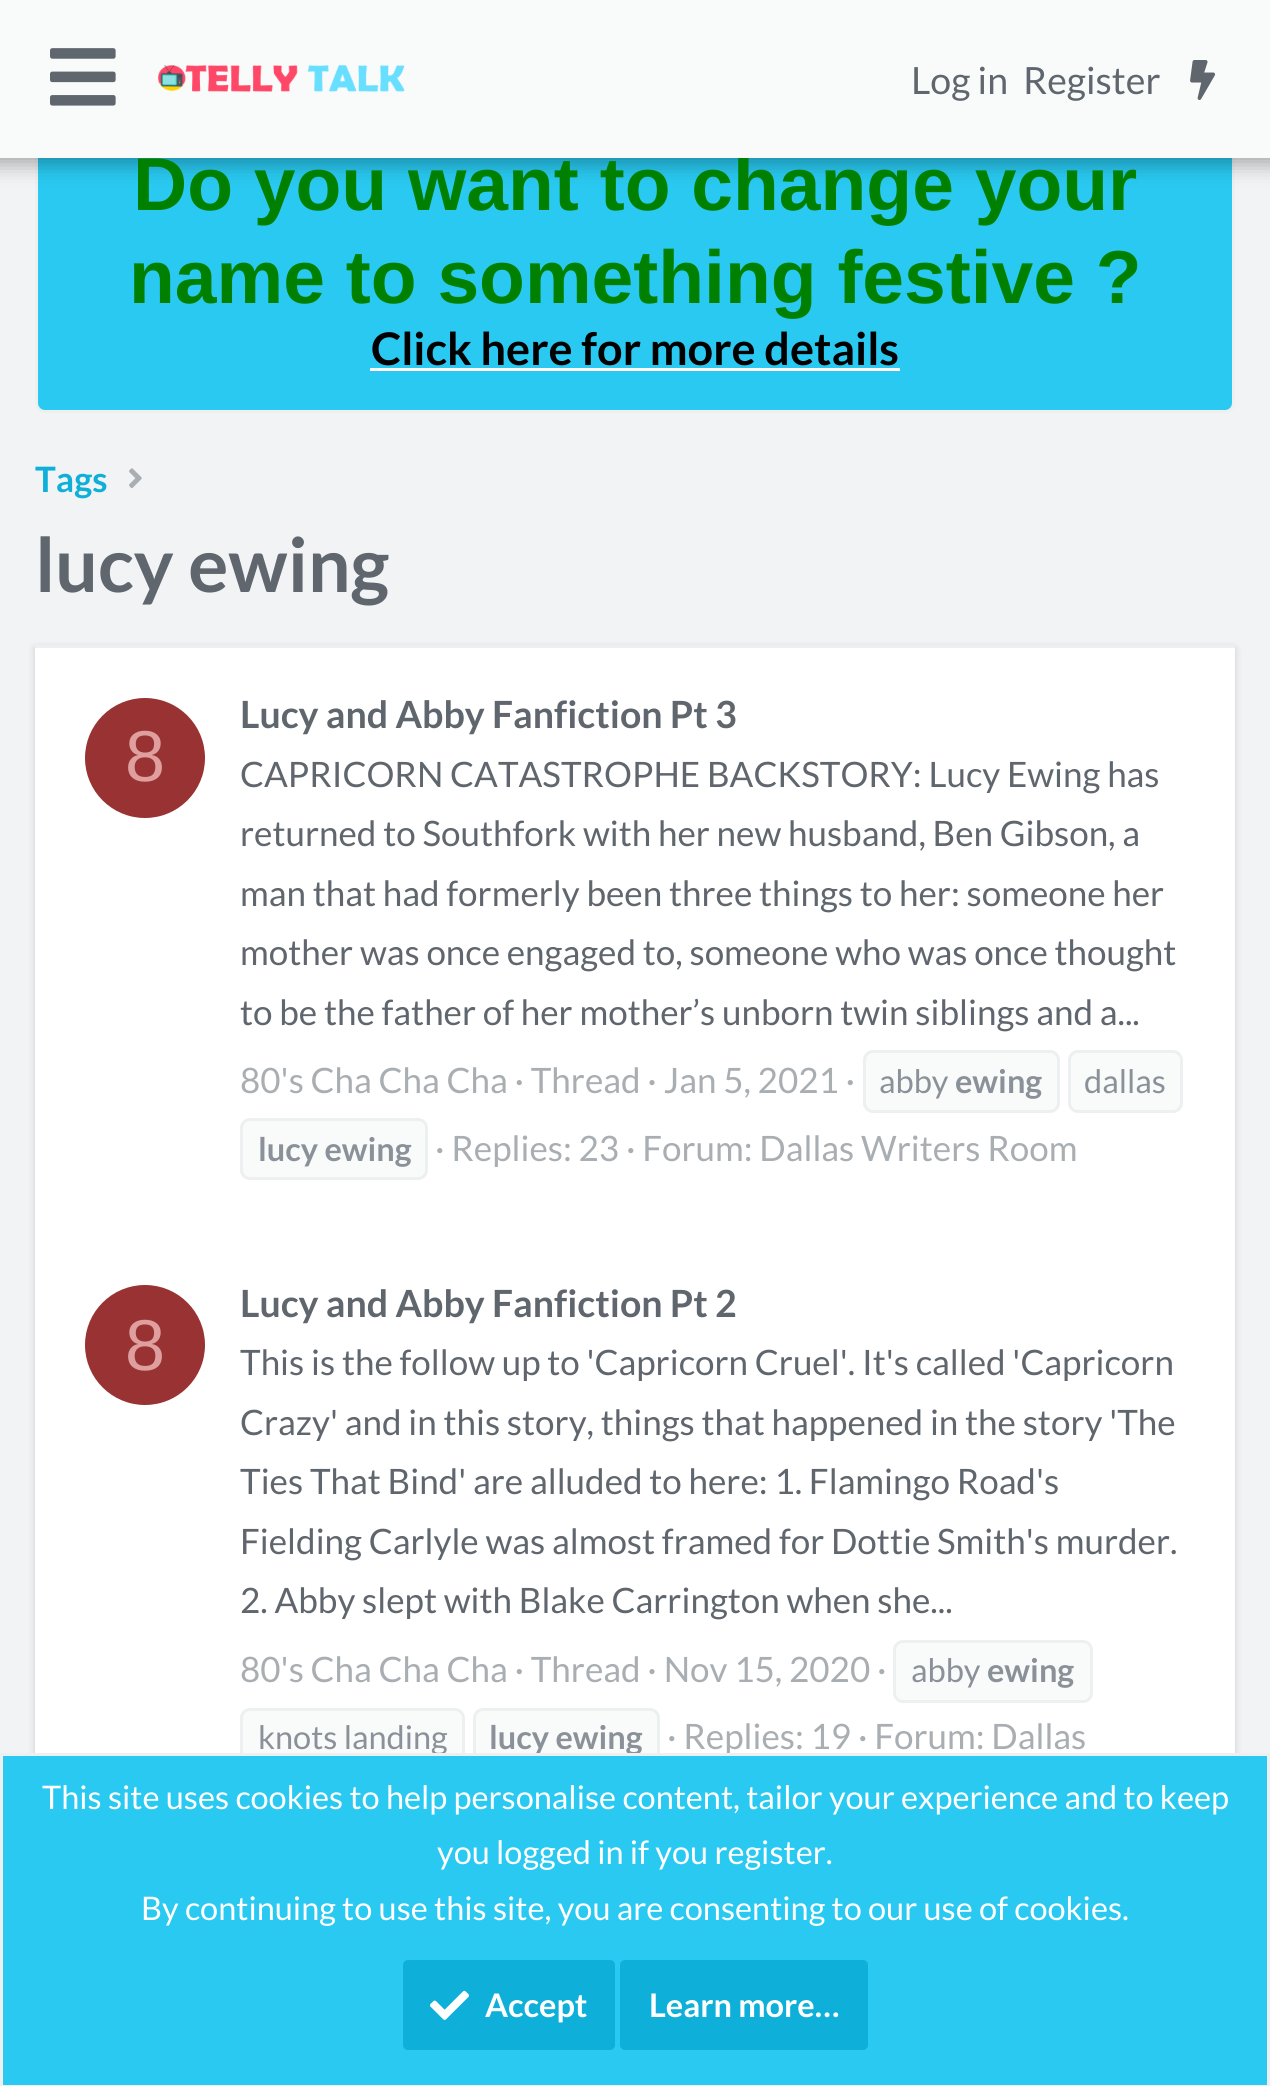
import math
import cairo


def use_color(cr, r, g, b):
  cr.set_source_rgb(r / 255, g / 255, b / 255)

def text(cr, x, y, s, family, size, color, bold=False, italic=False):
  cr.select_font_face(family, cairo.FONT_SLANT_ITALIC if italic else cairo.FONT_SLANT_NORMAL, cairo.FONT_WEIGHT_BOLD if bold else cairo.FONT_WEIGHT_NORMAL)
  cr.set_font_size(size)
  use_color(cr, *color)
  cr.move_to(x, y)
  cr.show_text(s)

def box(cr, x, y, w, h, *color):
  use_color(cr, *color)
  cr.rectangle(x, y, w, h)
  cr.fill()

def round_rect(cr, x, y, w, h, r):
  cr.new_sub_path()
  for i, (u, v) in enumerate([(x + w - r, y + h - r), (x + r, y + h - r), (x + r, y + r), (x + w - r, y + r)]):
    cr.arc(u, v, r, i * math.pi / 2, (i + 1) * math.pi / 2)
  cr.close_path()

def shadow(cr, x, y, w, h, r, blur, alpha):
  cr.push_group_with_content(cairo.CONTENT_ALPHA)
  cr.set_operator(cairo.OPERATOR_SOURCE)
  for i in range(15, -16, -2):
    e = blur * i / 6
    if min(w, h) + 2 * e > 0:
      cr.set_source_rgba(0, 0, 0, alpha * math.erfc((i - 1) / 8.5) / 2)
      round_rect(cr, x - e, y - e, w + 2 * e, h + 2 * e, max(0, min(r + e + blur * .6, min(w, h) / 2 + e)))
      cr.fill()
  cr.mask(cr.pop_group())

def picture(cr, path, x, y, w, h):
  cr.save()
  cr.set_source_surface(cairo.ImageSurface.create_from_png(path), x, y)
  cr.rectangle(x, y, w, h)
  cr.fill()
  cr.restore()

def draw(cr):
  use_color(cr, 241, 243, 244)
  cr.paint()
  use_color(cr, 41, 201, 241)
  round_rect(cr, 36.5, 6.5, 1197, 405, 8.5)
  cr.fill_preserve()
  use_color(cr, 237, 240, 240)
  cr.set_line_width(3)
  cr.stroke()
  use_color(cr, 0, 0, 0)
  shadow(cr, -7, -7, 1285, 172, 0, 10, 0.3)
  box(cr, 370, 368, 530, 3, 255, 255, 255)
  picture(cr, "img_04.png", 129, 468, 13, 20)
  use_color(cr, 0, 0, 0)
  shadow(cr, 35, 648, 1200, 1242, 0, 4, 0.15)
  box(cr, 35, 648, 1200, 1105, 255, 255, 255)
  box(cr, 35, 645, 1200, 3, 237, 240, 240)
  use_color(cr, 153, 51, 51)
  cr.arc(145, 758, 60, 0, 2 * math.pi)
  cr.fill()
  use_color(cr, 249, 250, 250)
  round_rect(cr, 864.5, 1051.5, 194, 60, 8.5)
  cr.fill_preserve()
  use_color(cr, 237, 240, 240)
  cr.stroke()
  use_color(cr, 249, 250, 250)
  round_rect(cr, 1069.5, 1051.5, 112, 60, 8.5)
  cr.fill_preserve()
  use_color(cr, 237, 240, 240)
  cr.stroke()
  use_color(cr, 249, 250, 250)
  round_rect(cr, 241.5, 1119.5, 185, 59, 8.5)
  cr.fill_preserve()
  use_color(cr, 237, 240, 240)
  cr.stroke()
  use_color(cr, 153, 51, 51)
  cr.arc(145, 1345, 60, 0, 2 * math.pi)
  cr.fill()
  use_color(cr, 249, 250, 250)
  round_rect(cr, 894.5, 1641.5, 197, 60, 8.5)
  cr.fill_preserve()
  use_color(cr, 237, 240, 240)
  cr.stroke()
  use_color(cr, 249, 250, 250)
  round_rect(cr, 241.5, 1709.5, 222, 59, 8.5)
  cr.fill_preserve()
  use_color(cr, 237, 240, 240)
  cr.stroke()
  use_color(cr, 249, 250, 250)
  round_rect(cr, 474.5, 1709.5, 184, 59, 8.5)
  cr.fill_preserve()
  use_color(cr, 237, 240, 240)
  cr.stroke()
  text(cr, 133, 210, "Do you want to change your", "Liberation Sans", 75, (0, 128, 0), bold=True)
  box(cr, 0, 0, 1270, 158, 249, 250, 250)
  picture(cr, "img_02.png", 158, 65, 247, 27)
  text(cr, 1023, 94, "Register", "Lato", 37.5, (96, 102, 109))
  text(cr, 911, 94, "Log in", "Lato", 37.5, (96, 102, 109))
  picture(cr, "img_03.png", 1190, 60, 26, 40)
  picture(cr, "img_01.png", 50, 48, 66, 58)
  text(cr, 129, 303, "name to something festive ?", "Liberation Sans", 75, (0, 128, 0), bold=True)
  text(cr, 371, 365, "Click here for more details", "Lato", 45, (0, 0, 0), bold=True)
  text(cr, 35, 492, "Tags", "Lato", 35, (14, 176, 217), bold=True)
  text(cr, 35, 592, "lucy ewing", "Lato", 75, (96, 102, 109), bold=True)
  text(cr, 125, 781, "8", "Liberation Sans", 72, (223, 159, 159))
  text(cr, 240, 728, "Lucy and Abby Fanfiction Pt 3", "Lato", 37.5, (96, 102, 109), bold=True)
  text(cr, 240, 787, "CAPRICORN CATASTROPHE BACKSTORY: Lucy Ewing has", "Lato", 35, (96, 102, 109))
  text(cr, 240, 846, "returned to Southfork with her new husband, Ben Gibson, a", "Lato", 35, (96, 102, 109))
  text(cr, 240, 906, "man that had formerly been three things to her: someone her", "Lato", 35, (96, 102, 109))
  text(cr, 240, 965, "mother was once engaged to, someone who was once thought", "Lato", 35, (96, 102, 109))
  text(cr, 240, 1025, "to be the father of her mother’s unborn twin siblings and a...", "Lato", 35, (96, 102, 109))
  text(cr, 240, 1093, "80's Cha Cha Cha · Thread · Jan 5, 2021 ·", "Lato", 35, (169, 174, 179))
  text(cr, 879, 1093, "abby", "Lato", 32.5, (139, 145, 153))
  text(cr, 955, 1093, "ewing", "Lato", 32.5, (139, 145, 153), bold=True)
  text(cr, 1084, 1093, "dallas", "Lato", 32.5, (139, 145, 153))
  text(cr, 258, 1161, "lucy ewing", "Lato", 32.5, (139, 145, 153), bold=True)
  text(cr, 435, 1161, "· Replies: 23 · Forum: Dallas Writers Room", "Lato", 35, (169, 174, 179))
  text(cr, 125, 1370, "8", "Liberation Sans", 72, (223, 159, 159))
  text(cr, 240, 1317, "Lucy and Abby Fanfiction Pt 2", "Lato", 37.5, (96, 102, 109), bold=True)
  text(cr, 240, 1375, "This is the follow up to 'Capricorn Cruel'. It's called 'Capricorn", "Lato", 35, (96, 102, 109))
  text(cr, 240, 1435, "Crazy' and in this story, things that happened in the story 'The", "Lato", 35, (96, 102, 109))
  text(cr, 240, 1494, "Ties That Bind' are alluded to here: 1. Flamingo Road's", "Lato", 35, (96, 102, 109))
  text(cr, 240, 1554, "Fielding Carlyle was almost framed for Dottie Smith's murder.", "Lato", 35, (96, 102, 109))
  text(cr, 240, 1613, "2. Abby slept with Blake Carrington when she...", "Lato", 35, (96, 102, 109))
  text(cr, 240, 1682, "80's Cha Cha Cha · Thread · Nov 15, 2020 ·", "Lato", 35, (169, 174, 179))
  text(cr, 911, 1682, "abby", "Lato", 32.5, (139, 145, 153))
  text(cr, 987, 1682, "ewing", "Lato", 32.5, (139, 145, 153), bold=True)
  text(cr, 258, 1749, "knots landing", "Lato", 32.5, (139, 145, 153))
  text(cr, 489, 1749, "lucy ewing", "Lato", 32.5, (139, 145, 153), bold=True)
  text(cr, 667, 1749, "· Replies: 19 · Forum: Dallas", "Lato", 35, (169, 174, 179))
  use_color(cr, 41, 201, 241)
  cr.rectangle(1.5, 1754.5, 1267, 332)
  cr.fill_preserve()
  use_color(cr, 237, 240, 240)
  cr.stroke()
  text(cr, 42, 1809, "This site uses cookies to help personalise content, tailor your experience and to keep", "Lato", 32.5, (255, 255, 255))
  text(cr, 437, 1864, "you logged in if you register.", "Lato", 32.5, (255, 255, 255))
  text(cr, 141, 1920, "By continuing to use this site, you are consenting to our use of cookies.", "Lato", 32.5, (255, 255, 255))
  use_color(cr, 14, 176, 217)
  round_rect(cr, 403, 1960, 212, 90, 5)
  cr.fill()
  picture(cr, "img_05.png", 430, 1990, 39, 30)
  text(cr, 485, 2017, "Accept", "Lato", 32.5, (255, 255, 255), bold=True)
  use_color(cr, 14, 176, 217)
  round_rect(cr, 620, 1960, 248, 90, 5)
  cr.fill()
  text(cr, 649, 2017, "Learn more…", "Lato", 32.5, (255, 255, 255), bold=True)


surface = cairo.ImageSurface(cairo.FORMAT_RGB24, 1270, 2086)
cr = cairo.Context(surface)
options = cairo.FontOptions()
options.set_hint_metrics(cairo.HINT_METRICS_OFF)
options.set_hint_style(cairo.HINT_STYLE_NONE)
cr.set_font_options(options)
cr.set_miter_limit(4)
draw(cr)
surface.write_to_png("out.png")
